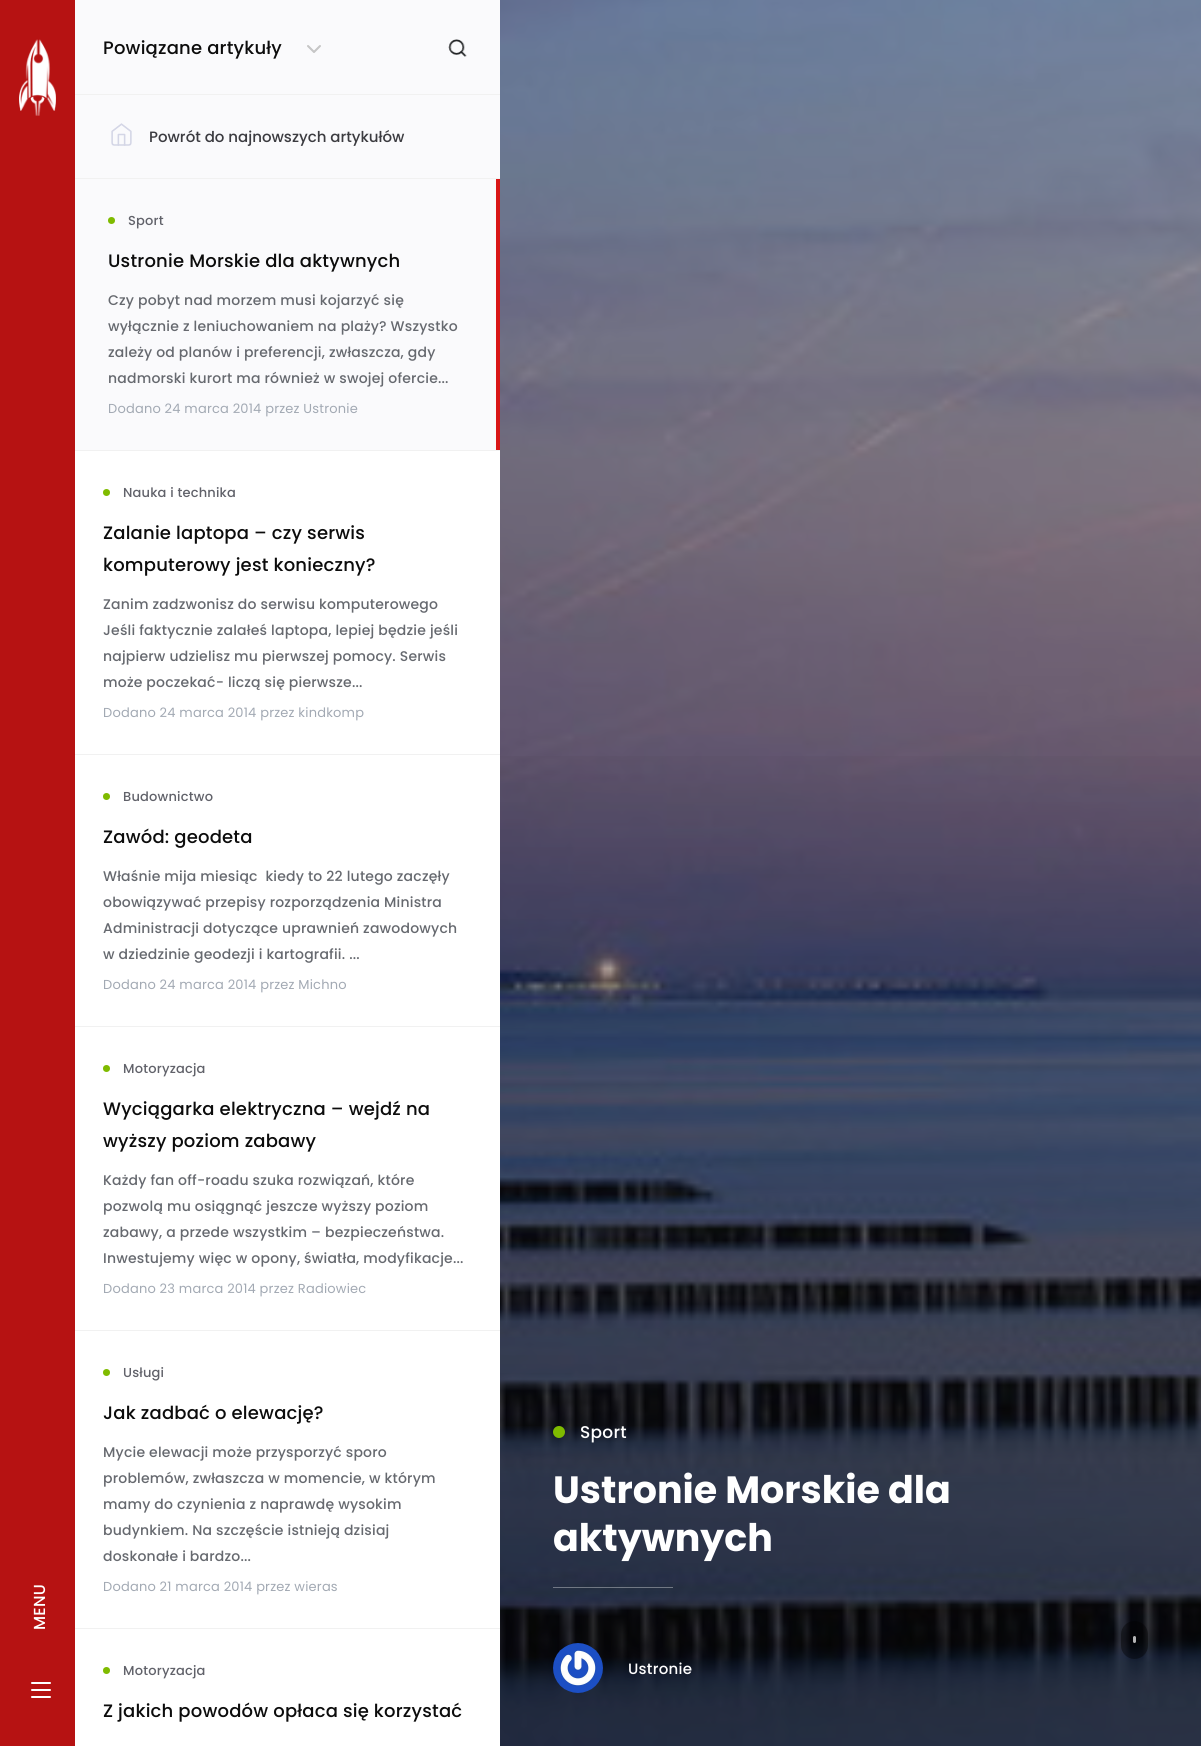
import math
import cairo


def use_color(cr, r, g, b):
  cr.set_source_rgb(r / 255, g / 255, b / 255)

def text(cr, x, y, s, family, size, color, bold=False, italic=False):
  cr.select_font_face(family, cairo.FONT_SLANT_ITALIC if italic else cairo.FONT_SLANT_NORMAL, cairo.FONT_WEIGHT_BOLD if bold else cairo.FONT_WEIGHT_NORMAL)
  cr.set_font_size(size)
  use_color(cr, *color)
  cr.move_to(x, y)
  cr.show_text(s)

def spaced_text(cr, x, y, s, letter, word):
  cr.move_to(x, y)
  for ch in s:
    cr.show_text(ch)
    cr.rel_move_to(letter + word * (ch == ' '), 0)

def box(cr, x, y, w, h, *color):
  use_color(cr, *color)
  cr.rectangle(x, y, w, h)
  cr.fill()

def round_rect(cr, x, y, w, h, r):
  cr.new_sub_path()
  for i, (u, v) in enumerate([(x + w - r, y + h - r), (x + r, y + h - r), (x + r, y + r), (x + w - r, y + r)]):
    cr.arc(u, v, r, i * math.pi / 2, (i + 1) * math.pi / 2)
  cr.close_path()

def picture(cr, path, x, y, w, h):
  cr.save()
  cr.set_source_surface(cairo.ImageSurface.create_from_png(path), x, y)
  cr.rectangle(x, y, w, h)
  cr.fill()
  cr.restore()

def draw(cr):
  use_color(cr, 255, 255, 255)
  cr.paint()
  box(cr, 0, 0, 75, 1746, 182, 18, 18)
  picture(cr, "img_01.png", 19, 39, 37, 77)
  use_color(cr, 255, 255, 255)
  round_rect(cr, 31, 1682, 20, 2, 1)
  cr.fill()
  round_rect(cr, 31, 1689, 20, 2, 1)
  cr.fill()
  round_rect(cr, 31, 1696, 20, 2, 1)
  cr.fill()
  box(cr, 75, 0, 425, 94, 250, 250, 252)
  picture(cr, "img_02.png", 307, 45, 14, 8)
  picture(cr, "img_03.png", 448, 39, 19, 18)
  box(cr, 75, 95, 425, 83, 250, 250, 252)
  box(cr, 75, 94, 425, 1, 241, 241, 241)
  box(cr, 75, 178, 425, 1, 241, 241, 241)
  picture(cr, "img_04.png", 111, 123, 21, 23)
  box(cr, 75, 179, 421, 271, 250, 250, 252)
  box(cr, 75, 450, 425, 1, 241, 241, 241)
  use_color(cr, 127, 187, 0)
  cr.arc(111.5, 220.5, 3.5, 0, 2 * math.pi)
  cr.fill()
  box(cr, 496, 179, 4, 271, 217, 22, 22)
  box(cr, 75, 754, 425, 1, 241, 241, 241)
  use_color(cr, 127, 187, 0)
  cr.arc(106.5, 492.5, 3.5, 0, 2 * math.pi)
  cr.fill()
  box(cr, 75, 1026, 425, 1, 241, 241, 241)
  use_color(cr, 127, 187, 0)
  cr.arc(106.5, 796.5, 3.5, 0, 2 * math.pi)
  cr.fill()
  box(cr, 75, 1330, 425, 1, 241, 241, 241)
  use_color(cr, 127, 187, 0)
  cr.arc(106.5, 1068.5, 3.5, 0, 2 * math.pi)
  cr.fill()
  box(cr, 75, 1628, 425, 1, 241, 241, 241)
  use_color(cr, 127, 187, 0)
  cr.arc(106.5, 1372.5, 3.5, 0, 2 * math.pi)
  cr.fill()
  cr.arc(106.5, 1670.5, 3.5, 0, 2 * math.pi)
  cr.fill()
  box(cr, 500, 0, 701, 1746, 29, 29, 31)
  picture(cr, "img_05.png", 500, 0, 701, 1746)
  gradient = cairo.LinearGradient(851, -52, 850, 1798)
  gradient.add_color_stop_rgba(0.41, 0, 0, 0, 0)
  gradient.add_color_stop_rgba(0.91, 0, 0, 0, 0.4)
  cr.set_source(gradient)
  cr.rectangle(500, 756, 701, 990)
  cr.fill()
  use_color(cr, 127, 187, 0)
  cr.arc(559, 1432, 6, 0, 2 * math.pi)
  cr.fill()
  cr.set_source_rgba(1, 1, 1, 0.35)
  cr.rectangle(553, 1587, 120, 1)
  cr.fill()
  picture(cr, "img_06.png", 553, 1643, 50, 50)
  cr.set_source_rgba(0, 0, 0, 0.4)
  round_rect(cr, 1121, 1621, 27, 38, 13.5)
  cr.fill()
  cr.set_source_rgba(1, 1, 1, 0.7)
  round_rect(cr, 1133, 1636, 3, 7, 1.5)
  cr.fill()
  cr.select_font_face("Poppins Medium")
  cr.set_font_size(16)
  use_color(cr, 255, 255, 255)
  cr.save()
  cr.translate(45, 1630)
  cr.rotate(-90 * math.pi / 180)
  spaced_text(cr, 0, 0, "MENU", 0.2, 0)
  cr.restore()
  cr.set_font_size(18)
  use_color(cr, 12, 12, 12)
  spaced_text(cr, 103, 54, "Powiązane artykuły", 0.2, 0)
  text(cr, 149, 142, "Powrót do najnowszych artykułów", "Poppins Medium", 15, (59, 59, 64))
  cr.set_font_size(13)
  use_color(cr, 97, 98, 106)
  spaced_text(cr, 128, 225, "Sport", 0.2, 0)
  cr.set_font_size(18)
  use_color(cr, 12, 12, 12)
  spaced_text(cr, 108, 267, "Ustronie Morskie dla aktywnych", 0.2, 0)
  cr.set_font_size(14)
  use_color(cr, 102, 105, 111)
  spaced_text(cr, 108, 305, "Czy pobyt nad morzem musi kojarzyć się", 0.2, 0)
  spaced_text(cr, 108, 331, "wyłącznie z leniuchowaniem na plaży? Wszystko", 0.2, 0)
  spaced_text(cr, 108, 357, "zależy od planów i preferencji, zwłaszcza, gdy", 0.2, 0)
  spaced_text(cr, 108, 383, "nadmorski kurort ma również w swojej ofercie...", 0.2, 0)
  cr.select_font_face("Poppins")
  cr.set_font_size(13)
  use_color(cr, 162, 169, 179)
  spaced_text(cr, 108, 413, "Dodano 24 marca 2014 przez Ustronie", 0.2, 0)
  cr.select_font_face("Poppins Medium")
  use_color(cr, 97, 98, 106)
  spaced_text(cr, 123, 497, "Nauka i technika", 0.2, 0)
  cr.set_font_size(18)
  use_color(cr, 12, 12, 12)
  spaced_text(cr, 103, 539, "Zalanie laptopa – czy serwis", 0.2, 0)
  spaced_text(cr, 103, 571, "komputerowy jest konieczny?", 0.2, 0)
  cr.set_font_size(14)
  use_color(cr, 102, 105, 111)
  spaced_text(cr, 103, 609, "Zanim zadzwonisz do serwisu komputerowego", 0.2, 0)
  spaced_text(cr, 103, 635, "Jeśli faktycznie zalałeś laptopa, lepiej będzie jeśli", 0.2, 0)
  spaced_text(cr, 103, 661, "najpierw udzielisz mu pierwszej pomocy. Serwis", 0.2, 0)
  spaced_text(cr, 103, 687, "może poczekać- liczą się pierwsze...", 0.2, 0)
  cr.select_font_face("Poppins")
  cr.set_font_size(13)
  use_color(cr, 162, 169, 179)
  spaced_text(cr, 103, 717, "Dodano 24 marca 2014 przez kindkomp", 0.2, 0)
  cr.select_font_face("Poppins Medium")
  use_color(cr, 97, 98, 106)
  spaced_text(cr, 123, 801, "Budownictwo", 0.2, 0)
  cr.set_font_size(18)
  use_color(cr, 12, 12, 12)
  spaced_text(cr, 103, 843, "Zawód: geodeta", 0.2, 0)
  cr.set_font_size(14)
  use_color(cr, 102, 105, 111)
  spaced_text(cr, 103, 881, "Właśnie mija miesiąc  kiedy to 22 lutego zaczęły", 0.2, 0)
  spaced_text(cr, 103, 907, "obowiązywać przepisy rozporządzenia Ministra", 0.2, 0)
  spaced_text(cr, 103, 933, "Administracji dotyczące uprawnień zawodowych", 0.2, 0)
  spaced_text(cr, 103, 959, "w dziedzinie geodezji i kartografii. ...", 0.2, 0)
  cr.select_font_face("Poppins")
  cr.set_font_size(13)
  use_color(cr, 162, 169, 179)
  spaced_text(cr, 103, 989, "Dodano 24 marca 2014 przez Michno", 0.2, 0)
  cr.select_font_face("Poppins Medium")
  use_color(cr, 97, 98, 106)
  spaced_text(cr, 123, 1073, "Motoryzacja", 0.2, 0)
  cr.set_font_size(18)
  use_color(cr, 12, 12, 12)
  spaced_text(cr, 103, 1115, "Wyciągarka elektryczna – wejdź na", 0.2, 0)
  spaced_text(cr, 103, 1147, "wyższy poziom zabawy", 0.2, 0)
  cr.set_font_size(14)
  use_color(cr, 102, 105, 111)
  spaced_text(cr, 103, 1185, "Każdy fan off-roadu szuka rozwiązań, które", 0.2, 0)
  spaced_text(cr, 103, 1211, "pozwolą mu osiągnąć jeszcze wyższy poziom", 0.2, 0)
  spaced_text(cr, 103, 1237, "zabawy, a przede wszystkim – bezpieczeństwa.", 0.2, 0)
  spaced_text(cr, 103, 1263, "Inwestujemy więc w opony, światła, modyfikacje...", 0.2, 0)
  cr.select_font_face("Poppins")
  cr.set_font_size(13)
  use_color(cr, 162, 169, 179)
  spaced_text(cr, 103, 1293, "Dodano 23 marca 2014 przez Radiowiec", 0.2, 0)
  cr.select_font_face("Poppins Medium")
  use_color(cr, 97, 98, 106)
  spaced_text(cr, 123, 1377, "Usługi", 0.2, 0)
  cr.set_font_size(18)
  use_color(cr, 12, 12, 12)
  spaced_text(cr, 103, 1419, "Jak zadbać o elewację?", 0.2, 0)
  cr.set_font_size(14)
  use_color(cr, 102, 105, 111)
  spaced_text(cr, 103, 1457, "Mycie elewacji może przysporzyć sporo", 0.2, 0)
  spaced_text(cr, 103, 1483, "problemów, zwłaszcza w momencie, w którym", 0.2, 0)
  spaced_text(cr, 103, 1509, "mamy do czynienia z naprawdę wysokim", 0.2, 0)
  spaced_text(cr, 103, 1535, "budynkiem. Na szczęście istnieją dzisiaj", 0.2, 0)
  spaced_text(cr, 103, 1561, "doskonałe i bardzo...", 0.2, 0)
  cr.select_font_face("Poppins")
  cr.set_font_size(13)
  use_color(cr, 162, 169, 179)
  spaced_text(cr, 103, 1591, "Dodano 21 marca 2014 przez wieras", 0.2, 0)
  cr.select_font_face("Poppins Medium")
  use_color(cr, 97, 98, 106)
  spaced_text(cr, 123, 1675, "Motoryzacja", 0.2, 0)
  cr.set_font_size(18)
  use_color(cr, 12, 12, 12)
  spaced_text(cr, 103, 1717, "Z jakich powodów opłaca się korzystać", 0.2, 0)
  cr.set_font_size(17)
  use_color(cr, 255, 255, 255)
  spaced_text(cr, 580, 1438, "Sport", 0.25, 0)
  text(cr, 553, 1503, "Ustronie Morskie dla", "Poppins", 38, (255, 255, 255), bold=True)
  text(cr, 553, 1551, "aktywnych", "Poppins", 38, (255, 255, 255), bold=True)
  cr.select_font_face("Poppins Medium")
  cr.set_font_size(15)
  spaced_text(cr, 628, 1674, "Ustronie", 0.25, 0)


surface = cairo.ImageSurface(cairo.FORMAT_RGB24, 1201, 1746)
cr = cairo.Context(surface)
options = cairo.FontOptions()
options.set_hint_metrics(cairo.HINT_METRICS_OFF)
options.set_hint_style(cairo.HINT_STYLE_NONE)
cr.set_font_options(options)
cr.set_miter_limit(4)
draw(cr)
surface.write_to_png("out.png")
